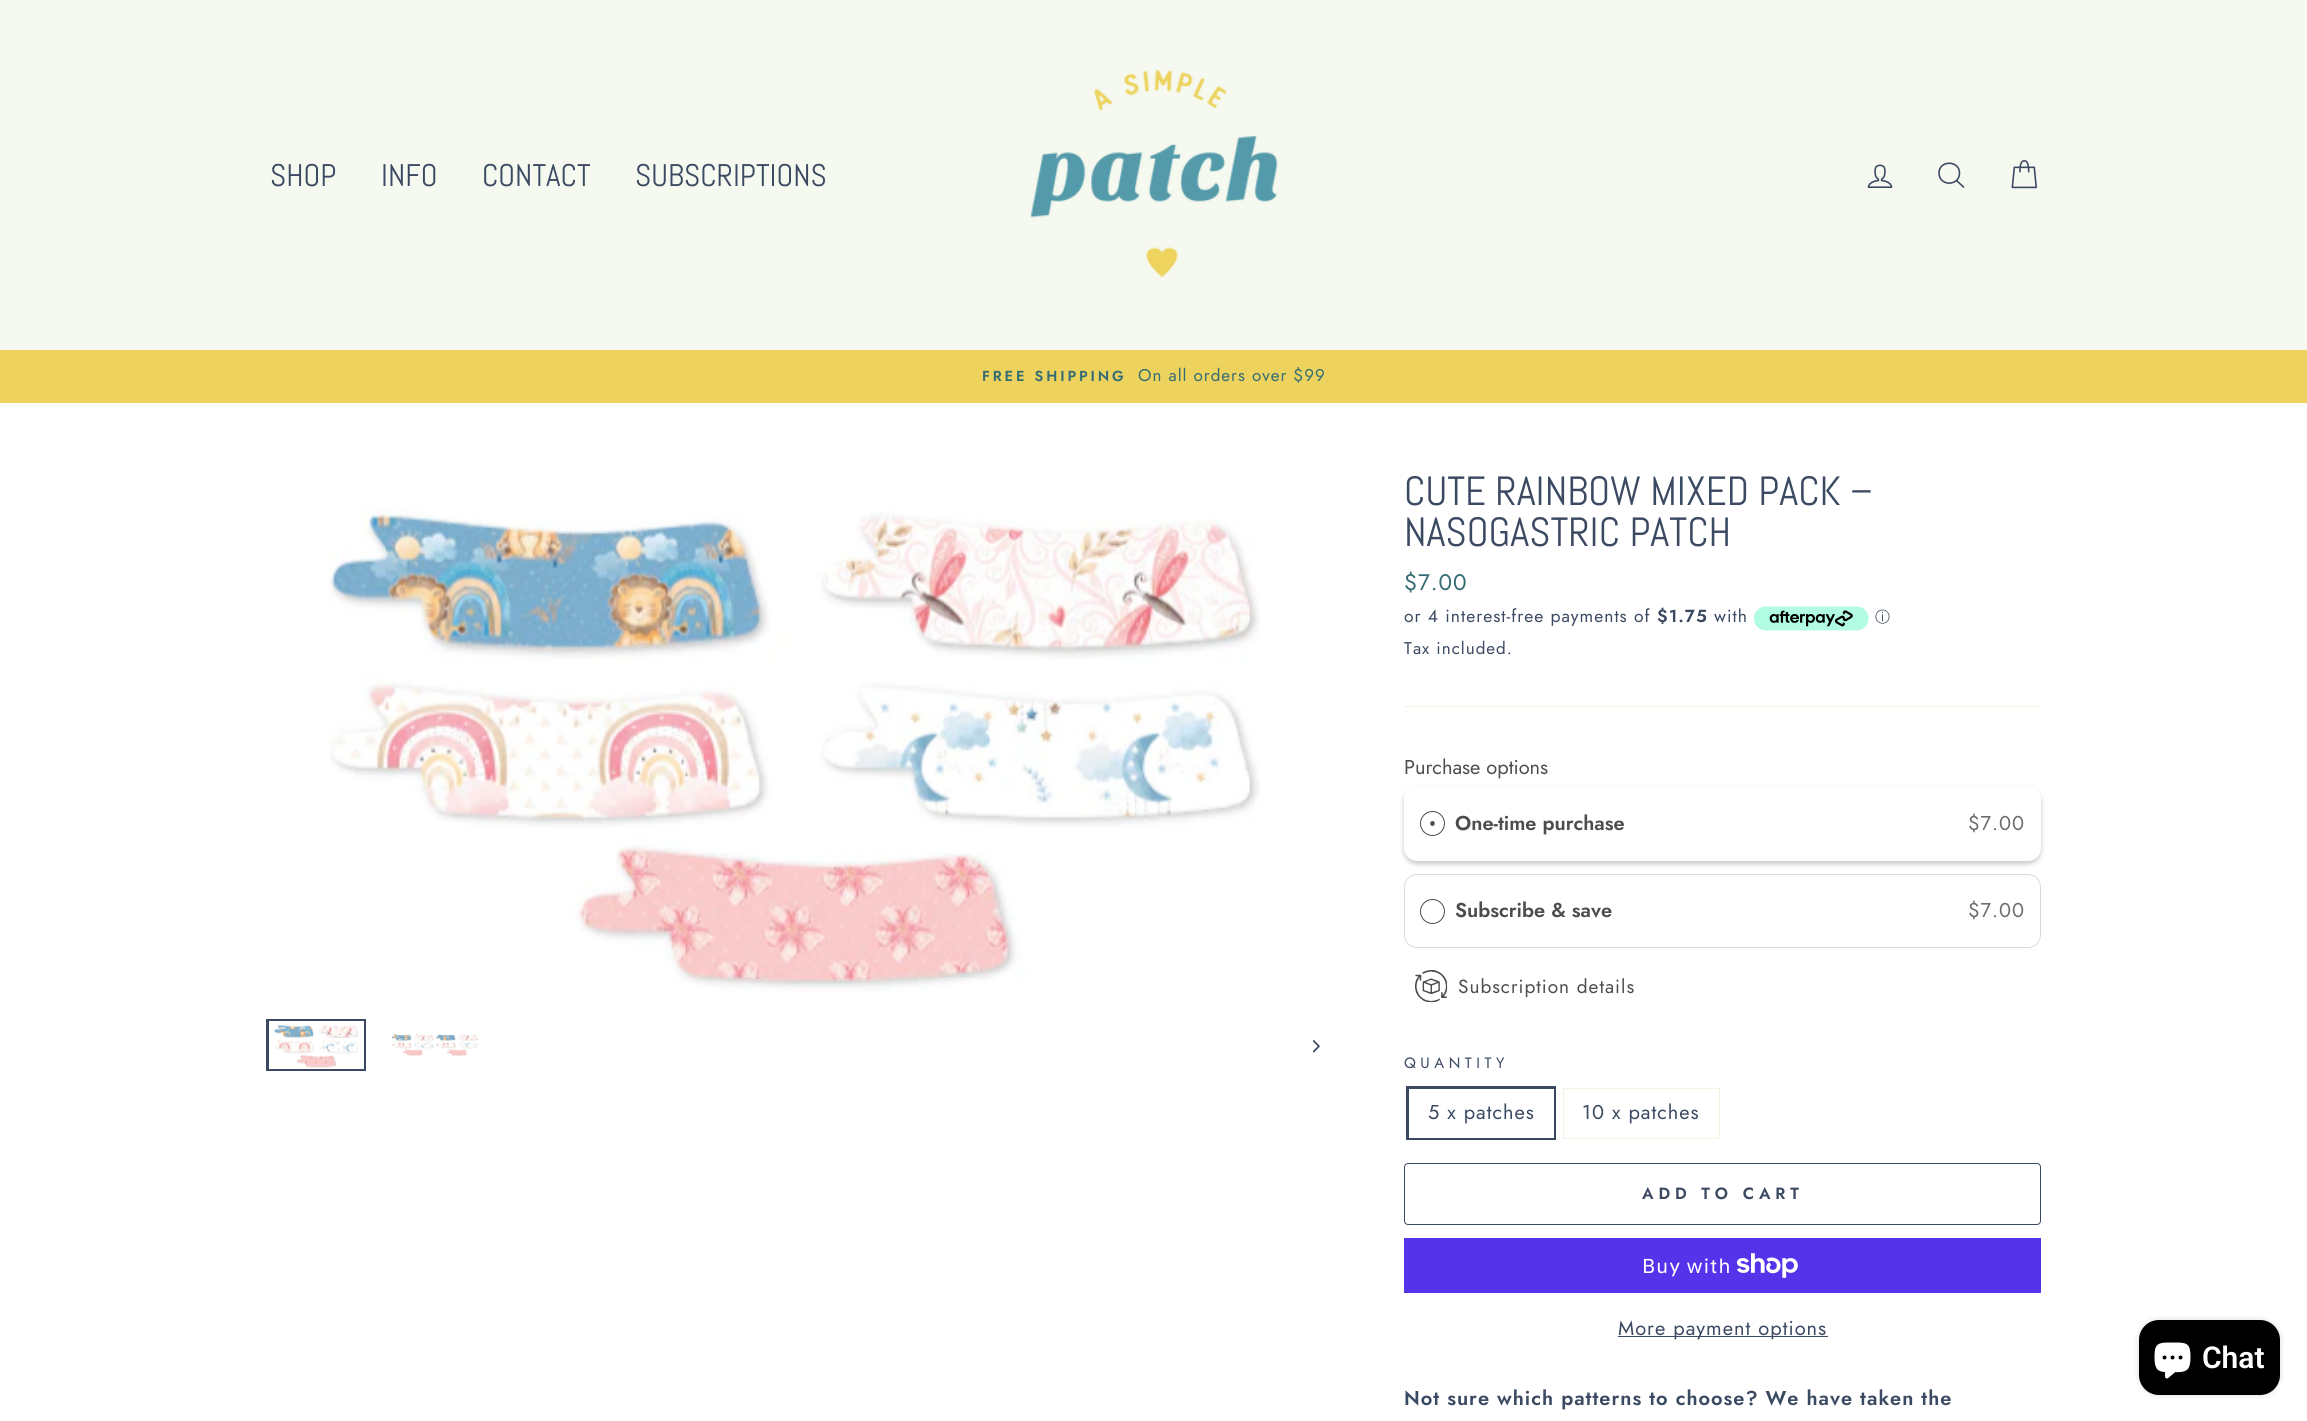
import math
import cairo


def use_color(cr, r, g, b):
  cr.set_source_rgb(r / 255, g / 255, b / 255)

def text(cr, x, y, s, family, size, color, bold=False, italic=False):
  cr.select_font_face(family, cairo.FONT_SLANT_ITALIC if italic else cairo.FONT_SLANT_NORMAL, cairo.FONT_WEIGHT_BOLD if bold else cairo.FONT_WEIGHT_NORMAL)
  cr.set_font_size(size)
  use_color(cr, *color)
  cr.move_to(x, y)
  cr.show_text(s)

def spaced_text(cr, x, y, s, letter, word):
  cr.move_to(x, y)
  for ch in s:
    cr.show_text(ch)
    cr.rel_move_to(letter + word * (ch == ' '), 0)

def box(cr, x, y, w, h, *color):
  use_color(cr, *color)
  cr.rectangle(x, y, w, h)
  cr.fill()

def round_rect(cr, x, y, w, h, r):
  cr.new_sub_path()
  for i, (u, v) in enumerate([(x + w - r, y + h - r), (x + r, y + h - r), (x + r, y + r), (x + w - r, y + r)]):
    cr.arc(u, v, r, i * math.pi / 2, (i + 1) * math.pi / 2)
  cr.close_path()

def shadow(cr, x, y, w, h, r, blur, alpha):
  cr.push_group_with_content(cairo.CONTENT_ALPHA)
  cr.set_operator(cairo.OPERATOR_SOURCE)
  for i in range(15, -16, -2):
    e = blur * i / 6
    if min(w, h) + 2 * e > 0:
      cr.set_source_rgba(0, 0, 0, alpha * math.erfc((i - 1) / 8.5) / 2)
      round_rect(cr, x - e, y - e, w + 2 * e, h + 2 * e, max(0, min(r + e + blur * .6, min(w, h) / 2 + e)))
      cr.fill()
  cr.mask(cr.pop_group())

def picture(cr, path, x, y, w, h):
  cr.save()
  cr.set_source_surface(cairo.ImageSurface.create_from_png(path), x, y)
  cr.rectangle(x, y, w, h)
  cr.fill()
  cr.restore()

def draw(cr):
  use_color(cr, 255, 255, 255)
  cr.paint()
  box(cr, 0, 0, 2307, 350, 245, 249, 239)
  picture(cr, "img_01.png", 1030, 69, 248, 209)
  picture(cr, "img_02.png", 1867, 164, 26, 24)
  cr.new_path()
  cr.move_to(1959.5, 173)
  cr.curve_to(1959.5, 186.5, 1939, 186.5, 1939, 173)
  cr.curve_to(1939, 160, 1959.5, 160, 1959.5, 173)
  cr.close_path()
  cr.move_to(1963.5, 187)
  cr.line_to(1956.5, 180.5)
  use_color(cr, 59, 74, 98)
  cr.set_line_width(1.6)
  cr.set_line_cap(cairo.LINE_CAP_ROUND)
  cr.set_line_join(cairo.LINE_JOIN_ROUND)
  cr.stroke()
  picture(cr, "img_03.png", 2011, 160, 26, 29)
  box(cr, 0, 350, 2307, 53, 237, 211, 93)
  picture(cr, "img_04.png", 329, 507, 931, 485)
  cr.rectangle(267.5, 1020.5, 97, 49)
  use_color(cr, 59, 74, 98)
  cr.set_line_width(3)
  cr.set_line_cap(cairo.LINE_CAP_BUTT)
  cr.set_line_join(cairo.LINE_JOIN_MITER)
  cr.stroke()
  box(cr, 269, 1021, 95, 48, 255, 255, 255)
  picture(cr, "img_05.png", 274, 1024, 84, 44)
  picture(cr, "img_06.png", 391, 1034, 87, 22)
  picture(cr, "img_07.png", 1313, 1040, 7, 13)
  picture(cr, "img_08.png", 1754, 606, 115, 25)
  box(cr, 1404, 706, 637, 1, 238, 245, 227)
  use_color(cr, 0, 0, 0)
  shadow(cr, 1404, 789, 637, 75, 13, 2.5, 0.22)
  use_color(cr, 255, 255, 255)
  round_rect(cr, 1404, 786, 637, 75, 13)
  cr.fill()
  cr.arc(1432.5, 823.5, 12, 0, 2 * math.pi)
  use_color(cr, 77, 77, 77)
  cr.set_line_width(1)
  cr.stroke()
  cr.new_path()
  cr.move_to(1432.5, 821)
  cr.curve_to(1429.5, 821, 1429.5, 826, 1432.5, 826)
  cr.curve_to(1435.5, 826, 1435.5, 821, 1432.5, 821)
  cr.close_path()
  cr.fill()
  round_rect(cr, 1404.5, 874.5, 636, 73, 12.5)
  use_color(cr, 219, 219, 219)
  cr.stroke()
  cr.arc(1432.5, 911.5, 12, 0, 2 * math.pi)
  use_color(cr, 77, 77, 77)
  cr.stroke()
  picture(cr, "img_09.png", 1415, 970, 33, 33)
  cr.rectangle(1407.5, 1087.5, 147, 51)
  use_color(cr, 59, 74, 98)
  cr.set_line_width(3)
  cr.stroke()
  box(cr, 1409, 1089, 145, 49, 255, 255, 255)
  cr.rectangle(1563.5, 1088.5, 156, 50)
  use_color(cr, 238, 245, 227)
  cr.set_line_width(1)
  cr.stroke()
  round_rect(cr, 1404.5, 1163.5, 636, 61, 3.5)
  use_color(cr, 59, 74, 98)
  cr.stroke()
  box(cr, 1404, 1238, 637, 55, 84, 51, 235)
  picture(cr, "img_10.png", 1736, 1253, 62, 25)
  box(cr, 1618, 1336, 210, 1, 59, 74, 98)
  use_color(cr, 0, 0, 0)
  shadow(cr, 2139, 1320, 141, 75, 20, 3, 0.15)
  use_color(cr, 0, 0, 0)
  round_rect(cr, 2139, 1320, 141, 75, 20)
  cr.fill()
  picture(cr, "img_11.png", 2154, 1342, 37, 37)
  text(cr, 270, 186, "SHOP", "Abel", 31.25, (59, 74, 98))
  text(cr, 381, 186, "INFO", "Abel", 31.25, (59, 74, 98))
  text(cr, 482, 186, "CONTACT", "Abel", 31.25, (59, 74, 98))
  text(cr, 635, 186, "SUBSCRIPTIONS", "Abel", 31.25, (59, 74, 98))
  cr.select_font_face("Jost SemiBold")
  cr.set_font_size(14.5)
  use_color(cr, 52, 108, 116)
  spaced_text(cr, 982, 381, "FREE SHIPPING", 2.9, 0)
  cr.select_font_face("Jost")
  cr.set_font_size(17)
  spaced_text(cr, 1138, 381, "On all orders over $99", 1, 0)
  text(cr, 1404, 505, "CUTE RAINBOW MIXED PACK –", "Abel", 40.8, (59, 74, 98))
  text(cr, 1404, 546, "NASOGASTRIC PATCH", "Abel", 40.8, (59, 74, 98))
  cr.select_font_face("Jost")
  cr.set_font_size(22.5)
  use_color(cr, 52, 108, 116)
  spaced_text(cr, 1404, 590, "$7.00", 1, 0)
  cr.set_font_size(17.5)
  use_color(cr, 59, 74, 98)
  spaced_text(cr, 1404, 622, "or 4 interest-free payments of", 1, 0)
  cr.select_font_face("Jost SemiBold")
  spaced_text(cr, 1657, 622, "$1.75", 1, 0)
  cr.select_font_face("Jost")
  spaced_text(cr, 1714, 622, "with", 1, 0)
  text(cr, 1875, 622, "ⓘ", "WenQuanYi Zen Hei Medium", 15, (59, 74, 98))
  cr.select_font_face("Jost")
  cr.set_font_size(17)
  spaced_text(cr, 1404, 654, "Tax included.", 1, 0)
  text(cr, 1404, 774, "Purchase options", "Jost", 20, (77, 77, 77))
  text(cr, 1455, 830, "One-time purchase", "Jost SemiBold", 20, (77, 77, 77))
  cr.select_font_face("Jost")
  use_color(cr, 109, 109, 109)
  spaced_text(cr, 1968, 830, "$7.00", 1, 0)
  text(cr, 1455, 917, "Subscribe & save", "Jost SemiBold", 20, (77, 77, 77))
  cr.select_font_face("Jost")
  use_color(cr, 109, 109, 109)
  spaced_text(cr, 1968, 917, "$7.00", 1, 0)
  cr.set_font_size(19)
  use_color(cr, 77, 77, 77)
  spaced_text(cr, 1458, 993, "Subscription details", 1, 0)
  cr.set_font_size(15)
  use_color(cr, 59, 74, 98)
  spaced_text(cr, 1404, 1068, "QUANTITY", 4.5, 0)
  cr.set_font_size(20)
  spaced_text(cr, 1428, 1119, "5 x patches", 1, 0)
  spaced_text(cr, 1582, 1119, "10 x patches", 1, 0)
  cr.select_font_face("Jost SemiBold")
  cr.set_font_size(16.25)
  spaced_text(cr, 1642, 1199, "ADD TO CART", 4.9, 0)
  cr.select_font_face("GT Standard")
  cr.set_font_size(20)
  use_color(cr, 255, 255, 255)
  spaced_text(cr, 1642, 1273, "Buy with", 1, 0)
  cr.select_font_face("Jost")
  use_color(cr, 59, 74, 98)
  spaced_text(cr, 1618, 1335, "More payment options", 1, 0)
  cr.select_font_face("Jost SemiBold")
  spaced_text(cr, 1404, 1405, "Not sure which patterns to choose? We have taken the", 1, 0)
  text(cr, 2202, 1368, "Chat", "Roboto SemiBold", 30, (255, 255, 255))


surface = cairo.ImageSurface(cairo.FORMAT_RGB24, 2307, 1421)
cr = cairo.Context(surface)
options = cairo.FontOptions()
options.set_hint_metrics(cairo.HINT_METRICS_OFF)
options.set_hint_style(cairo.HINT_STYLE_NONE)
cr.set_font_options(options)
cr.set_miter_limit(4)
draw(cr)
surface.write_to_png("out.png")
